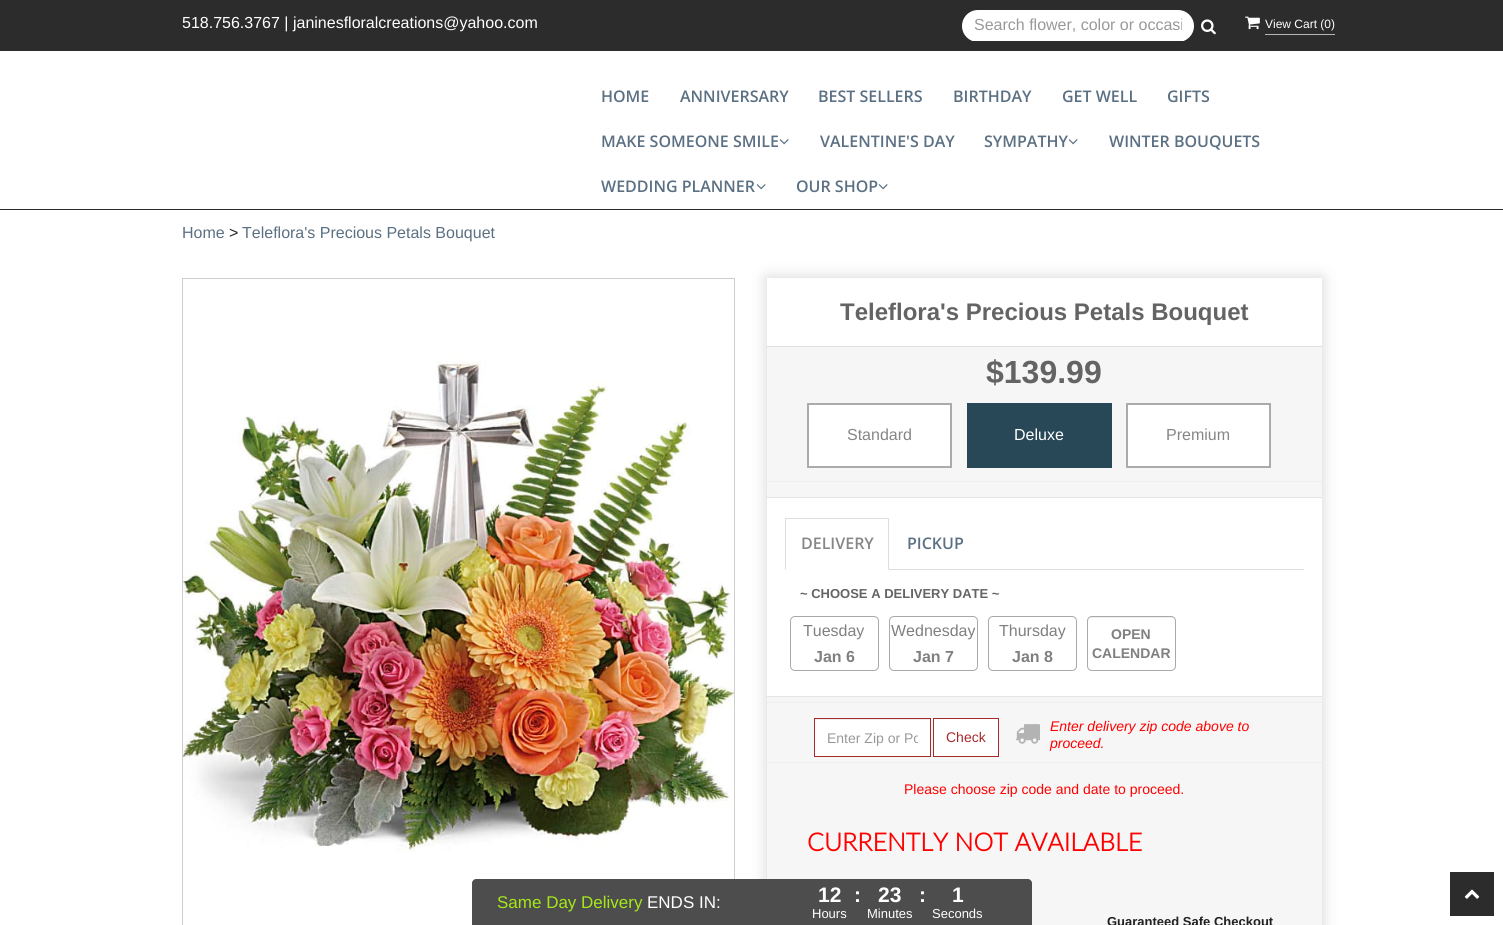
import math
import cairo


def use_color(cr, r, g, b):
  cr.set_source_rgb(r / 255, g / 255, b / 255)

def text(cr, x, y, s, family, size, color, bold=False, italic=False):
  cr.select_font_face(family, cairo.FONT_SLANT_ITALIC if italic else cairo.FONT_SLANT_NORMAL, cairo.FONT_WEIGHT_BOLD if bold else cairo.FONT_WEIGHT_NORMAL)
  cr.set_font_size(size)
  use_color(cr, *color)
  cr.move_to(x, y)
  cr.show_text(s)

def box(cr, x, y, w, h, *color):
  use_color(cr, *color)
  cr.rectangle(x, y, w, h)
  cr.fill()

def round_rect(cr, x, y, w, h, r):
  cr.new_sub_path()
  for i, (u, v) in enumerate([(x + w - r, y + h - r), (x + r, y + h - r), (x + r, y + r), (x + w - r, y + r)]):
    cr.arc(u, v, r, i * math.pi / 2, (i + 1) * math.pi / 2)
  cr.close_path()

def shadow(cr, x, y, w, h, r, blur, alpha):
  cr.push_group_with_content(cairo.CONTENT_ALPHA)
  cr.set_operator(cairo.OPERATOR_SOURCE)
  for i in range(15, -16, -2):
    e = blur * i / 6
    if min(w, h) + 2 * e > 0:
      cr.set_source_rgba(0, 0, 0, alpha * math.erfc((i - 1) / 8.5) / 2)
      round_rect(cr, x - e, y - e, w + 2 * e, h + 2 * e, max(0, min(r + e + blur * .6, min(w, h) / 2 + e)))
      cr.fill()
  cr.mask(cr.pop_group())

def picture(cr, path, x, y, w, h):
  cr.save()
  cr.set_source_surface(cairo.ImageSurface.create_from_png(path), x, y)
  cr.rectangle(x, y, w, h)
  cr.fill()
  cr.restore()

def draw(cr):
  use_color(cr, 255, 255, 255)
  cr.paint()
  box(cr, 0, 209, 1503, 1, 44, 44, 44)
  box(cr, 0, 0, 1503, 51, 44, 44, 44)
  use_color(cr, 255, 255, 255)
  round_rect(cr, 962, 10, 232, 32, 16)
  cr.fill()
  box(cr, 970, 41, 216, 1, 44, 44, 44)
  picture(cr, "img_01.png", 1201, 19, 15, 16)
  picture(cr, "img_02.png", 1245, 16, 15, 14)
  box(cr, 1265, 34, 70, 1, 183, 183, 183)
  picture(cr, "img_03.png", 779, 139, 10, 6)
  picture(cr, "img_03.png", 756, 184, 10, 6)
  picture(cr, "img_03.png", 878, 184, 10, 6)
  cr.rectangle(182.5, 278.5, 552, 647)
  use_color(cr, 206, 206, 206)
  cr.set_line_width(1)
  cr.stroke()
  picture(cr, "img_04.png", 183, 355, 551, 497)
  cr.save()
  cr.set_fill_rule(cairo.FILL_RULE_EVEN_ODD)
  cr.new_path()
  cr.move_to(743, 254)
  cr.line_to(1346, 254)
  cr.line_to(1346, 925)
  cr.line_to(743, 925)
  cr.close_path()
  cr.move_to(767, 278)
  cr.line_to(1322, 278)
  cr.line_to(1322, 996)
  cr.line_to(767, 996)
  cr.close_path()
  cr.clip()
  use_color(cr, 212, 212, 212)
  shadow(cr, 767, 278, 555, 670, 0, 7.5, 1)
  cr.restore()
  box(cr, 767, 346, 555, 1, 224, 224, 224)
  box(cr, 767, 347, 555, 578, 246, 246, 246)
  use_color(cr, 255, 255, 255)
  cr.rectangle(808, 404, 143, 63)
  cr.fill_preserve()
  use_color(cr, 171, 171, 171)
  cr.set_line_width(2)
  cr.stroke()
  box(cr, 967, 403, 145, 65, 41, 72, 87)
  use_color(cr, 255, 255, 255)
  cr.rectangle(1127, 404, 143, 63)
  cr.fill_preserve()
  use_color(cr, 171, 171, 171)
  cr.stroke()
  box(cr, 767, 481, 555, 1, 238, 238, 238)
  box(cr, 767, 498, 555, 198, 255, 255, 255)
  box(cr, 767, 497, 555, 1, 229, 229, 229)
  box(cr, 767, 696, 555, 1, 229, 229, 229)
  box(cr, 889, 569, 415, 1, 221, 221, 221)
  box(cr, 785, 518, 104, 1, 221, 221, 221)
  cr.new_path()
  cr.move_to(889, 518)
  cr.line_to(889, 570)
  cr.line_to(888, 569)
  cr.line_to(888, 519)
  cr.close_path()
  cr.fill()
  cr.new_path()
  cr.move_to(785, 570)
  cr.line_to(785, 518)
  cr.line_to(786, 519)
  cr.line_to(786, 569)
  cr.close_path()
  cr.fill()
  round_rect(cr, 790.5, 616.5, 88, 54, 4.5)
  use_color(cr, 169, 169, 169)
  cr.set_line_width(1)
  cr.stroke()
  round_rect(cr, 889.5, 616.5, 88, 54, 4.5)
  cr.stroke()
  round_rect(cr, 988.5, 616.5, 88, 54, 4.5)
  cr.stroke()
  round_rect(cr, 1087.5, 616.5, 88, 54, 4.5)
  cr.stroke()
  cr.save()
  round_rect(cr, 1088, 617, 87, 53, 4)
  cr.clip()
  cr.set_source_rgba(0, 0, 0, 0.07)
  cr.rectangle(1088, 617, 87, 1)
  cr.fill()
  cr.restore()
  box(cr, 767, 702, 555, 1, 238, 238, 238)
  box(cr, 815, 720, 115, 36, 255, 255, 255)
  box(cr, 815, 719, 115, 1, 236, 236, 236)
  cr.rectangle(814.5, 718.5, 116, 38)
  use_color(cr, 165, 42, 42)
  cr.stroke()
  use_color(cr, 255, 255, 255)
  cr.rectangle(933.5, 718.5, 65, 38)
  cr.fill_preserve()
  use_color(cr, 165, 42, 42)
  cr.stroke()
  picture(cr, "img_05.png", 1016, 724, 24, 20)
  box(cr, 767, 762, 555, 1, 238, 238, 238)
  box(cr, 1450, 872, 44, 44, 44, 44, 44)
  picture(cr, "img_06.png", 1464, 889, 16, 10)
  use_color(cr, 77, 77, 77)
  cr.new_path()
  cr.move_to(476, 879)
  cr.line_to(1028, 879)
  cr.curve_to(1030, 879, 1032, 881, 1032, 883)
  cr.line_to(1032, 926)
  cr.line_to(472, 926)
  cr.line_to(472, 883)
  cr.curve_to(472, 881, 474, 879, 476, 879)
  cr.close_path()
  cr.fill()
  text(cr, 182, 28, "518.756.3767 | janinesfloralcreations@yahoo.com", "Liberation Sans", 16, (255, 255, 255))
  cr.save()
  cr.rectangle(974, 16, 208, 18)
  cr.clip()
  text(cr, 974, 30, "Search flower, color or occasi", "Liberation Sans", 16, (153, 153, 153))
  cr.restore()
  text(cr, 1265, 28, "View Cart (0)", "Liberation Sans", 12, (255, 255, 255))
  text(cr, 601, 102, "HOME", "Open Sans SemiBold", 16, (91, 112, 131))
  text(cr, 680, 102, "ANNIVERSARY", "Open Sans SemiBold", 16, (91, 112, 131))
  text(cr, 818, 102, "BEST SELLERS", "Open Sans SemiBold", 16, (91, 112, 131))
  text(cr, 953, 102, "BIRTHDAY", "Open Sans SemiBold", 16, (91, 112, 131))
  text(cr, 1062, 102, "GET WELL", "Open Sans SemiBold", 16, (91, 112, 131))
  text(cr, 1167, 102, "GIFTS", "Open Sans SemiBold", 16, (91, 112, 131))
  text(cr, 601, 147, "MAKE SOMEONE SMILE", "Open Sans SemiBold", 16, (91, 112, 131))
  text(cr, 820, 147, "VALENTINE'S DAY", "Open Sans SemiBold", 16, (91, 112, 131))
  text(cr, 984, 147, "SYMPATHY", "Open Sans SemiBold", 16, (91, 112, 131))
  picture(cr, "img_03.png", 1068, 139, 10, 6)
  text(cr, 1109, 147, "WINTER BOUQUETS", "Open Sans SemiBold", 16, (91, 112, 131))
  text(cr, 601, 192, "WEDDING PLANNER", "Open Sans SemiBold", 16, (91, 112, 131))
  text(cr, 796, 192, "OUR SHOP", "Open Sans SemiBold", 16, (91, 112, 131))
  text(cr, 182, 238, "Home", "Liberation Sans", 16, (91, 112, 131))
  text(cr, 229, 238, ">", "Liberation Sans", 16, (33, 33, 33))
  text(cr, 242, 238, "Teleflora's Precious Petals Bouquet", "Liberation Sans", 16, (91, 112, 131))
  text(cr, 840, 320, "Teleflora's Precious Petals Bouquet", "Liberation Sans", 24, (100, 100, 100), bold=True)
  text(cr, 986, 383, "$139.99", "Liberation Sans", 32, (100, 100, 100), bold=True)
  text(cr, 847, 440, "Standard", "Liberation Sans", 16, (134, 134, 134))
  text(cr, 1014, 440, "Deluxe", "Liberation Sans", 16, (255, 255, 255))
  text(cr, 1166, 440, "Premium", "Liberation Sans", 16, (134, 134, 134))
  text(cr, 801, 549, "DELIVERY", "Open Sans SemiBold", 16, (134, 134, 134))
  text(cr, 907, 549, "PICKUP", "Open Sans SemiBold", 16, (91, 112, 131))
  text(cr, 800, 598, "~ CHOOSE A DELIVERY DATE ~", "Liberation Sans", 13, (100, 100, 100), bold=True)
  text(cr, 803, 636, "Tuesday", "Liberation Sans", 16, (128, 128, 128))
  text(cr, 814, 662, "Jan 6", "Liberation Sans", 16, (128, 128, 128), bold=True)
  text(cr, 891, 636, "Wednesday", "Liberation Sans", 16, (128, 128, 128))
  text(cr, 913, 662, "Jan 7", "Liberation Sans", 16, (128, 128, 128), bold=True)
  text(cr, 999, 636, "Thursday", "Liberation Sans", 16, (128, 128, 128))
  text(cr, 1012, 662, "Jan 8", "Liberation Sans", 16, (128, 128, 128), bold=True)
  text(cr, 1111, 639, "OPEN", "Liberation Sans", 14, (128, 128, 128), bold=True)
  text(cr, 1092, 658, "CALENDAR", "Liberation Sans", 14, (128, 128, 128), bold=True)
  cr.save()
  cr.rectangle(827, 730, 91, 16)
  cr.clip()
  text(cr, 827, 743, "Enter Zip or Po", "Liberation Sans", 14, (153, 153, 153))
  cr.restore()
  text(cr, 946, 742, "Check", "Liberation Sans", 14, (165, 42, 42))
  text(cr, 1050, 731, "Enter delivery zip code above to", "Liberation Sans", 14, (255, 0, 0), italic=True)
  text(cr, 1050, 748, "proceed.", "Liberation Sans", 14, (255, 0, 0), italic=True)
  text(cr, 904, 794, "Please choose zip code and date to proceed.", "Liberation Sans", 14, (255, 0, 0))
  text(cr, 807, 851, "CURRENTLY NOT AVAILABLE", "Lato", 25, (255, 0, 0), bold=True)
  text(cr, 1107, 926, "Guaranteed Safe Checkout", "Liberation Sans", 13, (33, 33, 33), bold=True)
  text(cr, 497, 908, "Same Day Delivery", "Liberation Sans", 17, (164, 232, 24))
  text(cr, 647, 908, "ENDS IN:", "Liberation Sans", 17, (255, 255, 255))
  text(cr, 818, 902, "12", "Liberation Sans", 21, (255, 255, 255), bold=True)
  text(cr, 812, 918, "Hours", "Liberation Sans", 13, (255, 255, 255))
  text(cr, 854, 902, ":", "Liberation Sans", 21, (255, 255, 255), bold=True)
  text(cr, 878, 902, "23", "Liberation Sans", 21, (255, 255, 255), bold=True)
  text(cr, 867, 918, "Minutes", "Liberation Sans", 13, (255, 255, 255))
  text(cr, 919, 902, ":", "Liberation Sans", 21, (255, 255, 255), bold=True)
  text(cr, 952, 902, "1", "Liberation Sans", 21, (255, 255, 255), bold=True)
  text(cr, 932, 918, "Seconds", "Liberation Sans", 13, (255, 255, 255))


surface = cairo.ImageSurface(cairo.FORMAT_RGB24, 1503, 925)
cr = cairo.Context(surface)
options = cairo.FontOptions()
options.set_hint_metrics(cairo.HINT_METRICS_OFF)
options.set_hint_style(cairo.HINT_STYLE_NONE)
cr.set_font_options(options)
cr.set_miter_limit(4)
draw(cr)
surface.write_to_png("out.png")
